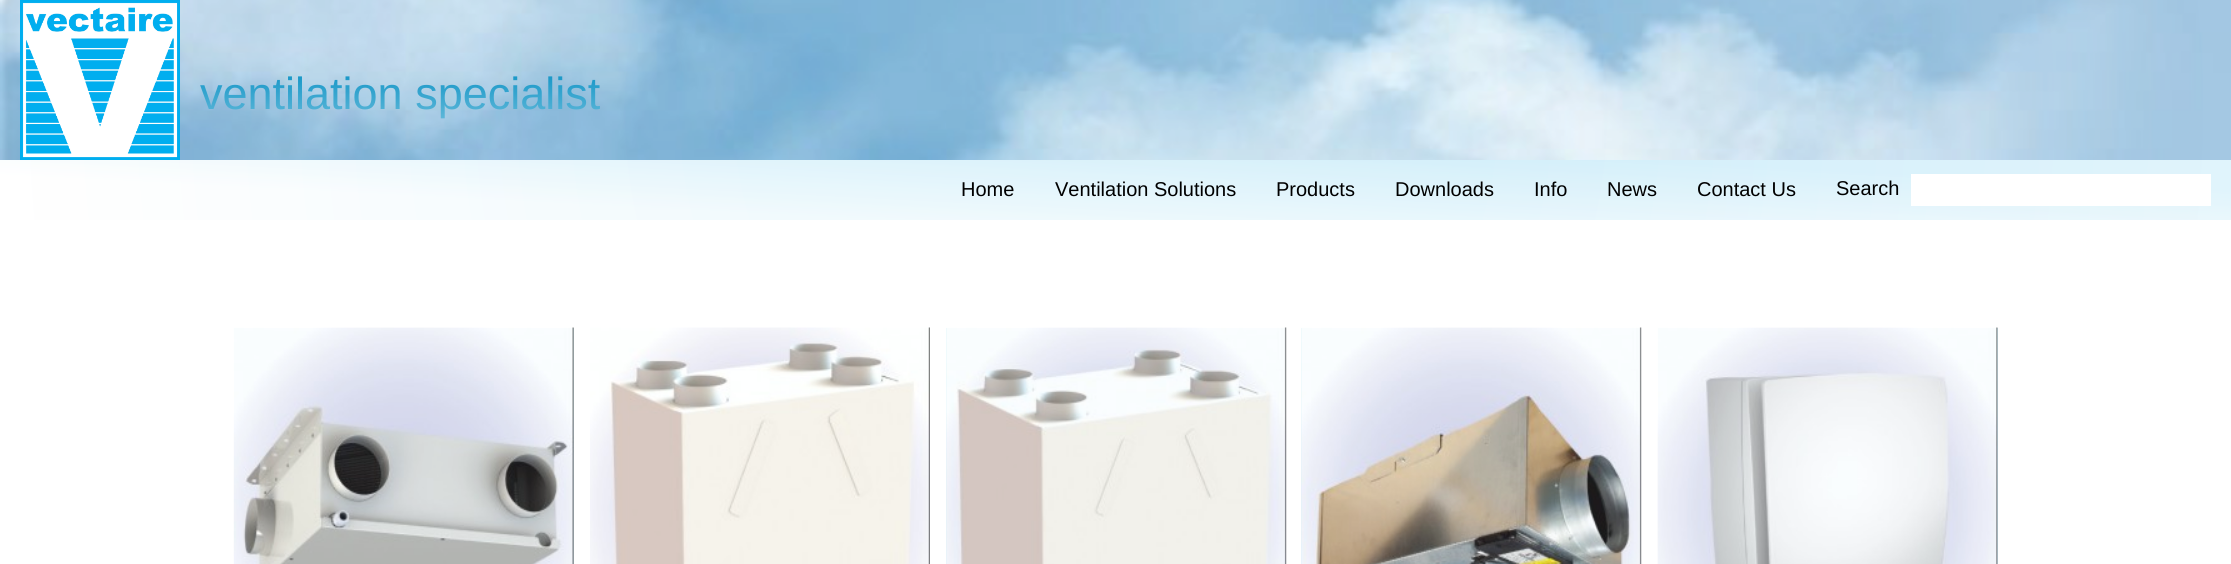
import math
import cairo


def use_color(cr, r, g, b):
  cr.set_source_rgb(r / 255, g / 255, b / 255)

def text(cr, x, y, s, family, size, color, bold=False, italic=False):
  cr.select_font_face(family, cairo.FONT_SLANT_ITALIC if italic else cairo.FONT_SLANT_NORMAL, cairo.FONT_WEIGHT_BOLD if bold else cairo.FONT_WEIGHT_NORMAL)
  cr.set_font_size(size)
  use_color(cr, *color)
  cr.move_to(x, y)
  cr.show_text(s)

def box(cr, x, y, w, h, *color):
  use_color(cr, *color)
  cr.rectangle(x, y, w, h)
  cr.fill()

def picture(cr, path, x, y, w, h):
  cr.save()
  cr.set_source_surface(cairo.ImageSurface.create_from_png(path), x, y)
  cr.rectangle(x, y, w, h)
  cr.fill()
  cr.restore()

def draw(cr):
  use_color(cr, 255, 255, 255)
  cr.paint()
  picture(cr, "img_01.png", 0, 0, 2231, 160)
  gradient = cairo.LinearGradient(1111, 278, 1120, 102)
  gradient.add_color_stop_rgba(0.26, 1, 1, 1, 1)
  gradient.add_color_stop_rgba(0.82, 0.827, 0.937, 0.98, 1)
  cr.set_source(gradient)
  cr.rectangle(0, 160, 2231, 60)
  cr.fill()
  gradient = cairo.RadialGradient(1116, 110, 0, 1116, 110, 1121)
  gradient.add_color_stop_rgba(0.33, 0.827, 0.937, 0.98, 0.3)
  gradient.add_color_stop_rgba(0.97, 1, 1, 1, 0.3)
  cr.set_source(gradient)
  cr.rectangle(0, 0, 2231, 220)
  cr.fill()
  picture(cr, "img_02.png", 20, 0, 160, 160)
  box(cr, 1911, 174, 300, 32, 255, 255, 255)
  box(cr, 234, 328, 340, 236, 211, 239, 250)
  picture(cr, "img_03.png", 233, 327, 341, 237)
  picture(cr, "img_04.png", 590, 327, 340, 237)
  box(cr, 946, 328, 340, 236, 211, 239, 250)
  picture(cr, "img_05.png", 946, 327, 341, 237)
  box(cr, 1301, 328, 340, 236, 211, 239, 250)
  picture(cr, "img_06.png", 1301, 327, 341, 237)
  box(cr, 1658, 328, 340, 236, 211, 239, 250)
  picture(cr, "img_07.png", 1657, 327, 341, 237)
  cr.select_font_face("Liberation Sans")
  cr.set_font_size(45)
  gradient = cairo.LinearGradient(400, 60, 400, 220)
  gradient.add_color_stop_rgba(0, 0, 0.553, 0.761, 1)
  gradient.add_color_stop_rgba(1, 1, 1, 1, 1)
  cr.set_source(gradient)
  cr.move_to(200, 109)
  cr.show_text("ventilation specialist")
  text(cr, 961, 196, "Home", "Liberation Sans", 20, (0, 0, 0))
  text(cr, 1055, 196, "Ventilation Solutions", "Liberation Sans", 20, (0, 0, 0))
  text(cr, 1276, 196, "Products", "Liberation Sans", 20, (0, 0, 0))
  text(cr, 1395, 196, "Downloads", "Liberation Sans", 20, (0, 0, 0))
  text(cr, 1534, 196, "Info", "Liberation Sans", 20, (0, 0, 0))
  text(cr, 1607, 196, "News", "Liberation Sans", 20, (0, 0, 0))
  text(cr, 1697, 196, "Contact Us", "Liberation Sans", 20, (0, 0, 0))
  text(cr, 1836, 195, "Search", "Liberation Sans", 20, (0, 0, 0))


surface = cairo.ImageSurface(cairo.FORMAT_RGB24, 2231, 564)
cr = cairo.Context(surface)
options = cairo.FontOptions()
options.set_hint_metrics(cairo.HINT_METRICS_OFF)
options.set_hint_style(cairo.HINT_STYLE_NONE)
cr.set_font_options(options)
cr.set_miter_limit(4)
draw(cr)
surface.write_to_png("out.png")
